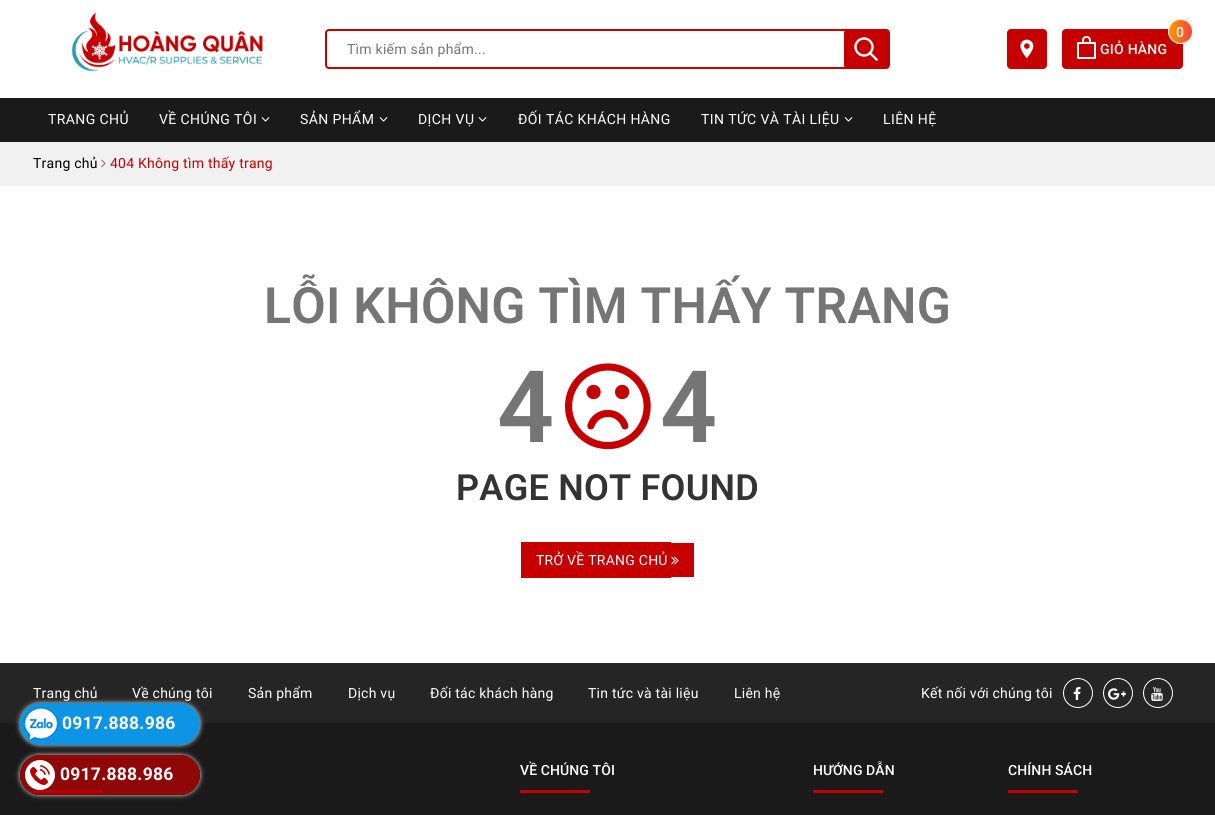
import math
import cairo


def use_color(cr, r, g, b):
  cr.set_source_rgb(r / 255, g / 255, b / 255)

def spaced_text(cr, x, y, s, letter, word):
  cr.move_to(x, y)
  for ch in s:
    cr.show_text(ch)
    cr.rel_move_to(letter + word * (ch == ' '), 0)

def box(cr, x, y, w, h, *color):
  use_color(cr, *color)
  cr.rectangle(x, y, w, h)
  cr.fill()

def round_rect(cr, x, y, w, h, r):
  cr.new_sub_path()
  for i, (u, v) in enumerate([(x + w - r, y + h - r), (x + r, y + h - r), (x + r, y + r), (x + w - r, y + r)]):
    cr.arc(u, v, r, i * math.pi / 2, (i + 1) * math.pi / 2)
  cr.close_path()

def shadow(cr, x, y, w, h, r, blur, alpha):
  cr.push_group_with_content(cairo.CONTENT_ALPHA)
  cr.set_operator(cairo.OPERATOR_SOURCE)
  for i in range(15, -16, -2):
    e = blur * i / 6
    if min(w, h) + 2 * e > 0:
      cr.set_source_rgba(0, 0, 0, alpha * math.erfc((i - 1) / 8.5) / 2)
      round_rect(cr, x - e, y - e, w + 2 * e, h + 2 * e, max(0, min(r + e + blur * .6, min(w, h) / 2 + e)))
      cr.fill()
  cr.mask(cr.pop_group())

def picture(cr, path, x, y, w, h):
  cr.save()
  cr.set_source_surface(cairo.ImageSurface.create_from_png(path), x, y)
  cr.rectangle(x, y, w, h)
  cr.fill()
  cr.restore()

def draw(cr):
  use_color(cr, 255, 255, 255)
  cr.paint()
  picture(cr, "img_01.png", 71, 12, 192, 60)
  round_rect(cr, 326, 30, 563, 38, 3)
  use_color(cr, 198, 0, 0)
  cr.stroke()
  round_rect(cr, 844, 29, 45, 40, 4)
  cr.fill()
  cr.new_path()
  cr.move_to(876.5, 59.5)
  cr.line_to(870, 53)
  use_color(cr, 255, 255, 255)
  cr.set_line_width(2.4)
  cr.set_line_cap(cairo.LINE_CAP_SQUARE)
  cr.stroke()
  cr.arc(864, 47, 8.5, 0, 2 * math.pi)
  cr.set_line_cap(cairo.LINE_CAP_BUTT)
  cr.stroke()
  use_color(cr, 198, 0, 0)
  round_rect(cr, 1007, 29, 40, 40, 4)
  cr.fill()
  picture(cr, "img_02.png", 1020, 39, 14, 20)
  round_rect(cr, 1062, 29, 121, 40, 4)
  cr.fill()
  cr.save()
  round_rect(cr, 1168, 19, 25, 25, 12.5)
  cr.clip()
  gradient = cairo.LinearGradient(1169, 32, 1192, 32)
  gradient.add_color_stop_rgba(0, 1, 0.596, 0, 1)
  gradient.add_color_stop_rgba(1, 0.957, 0.263, 0.212, 1)
  cr.set_source(gradient)
  cr.rectangle(1169, 19, 23, 25)
  cr.fill()
  cr.restore()
  cr.arc(1180.5, 31.5, 12, 0, 2 * math.pi)
  use_color(cr, 255, 255, 255)
  cr.set_line_width(1)
  cr.stroke()
  picture(cr, "img_03.png", 1077, 36, 19, 23)
  box(cr, 0, 98, 1215, 44, 26, 26, 26)
  picture(cr, "img_04.png", 261, 117, 9, 5)
  picture(cr, "img_04.png", 379, 117, 9, 5)
  picture(cr, "img_04.png", 478, 117, 9, 5)
  picture(cr, "img_04.png", 844, 117, 9, 5)
  box(cr, 0, 142, 1215, 44, 241, 241, 241)
  picture(cr, "img_05.png", 101, 159, 5, 9)
  picture(cr, "img_06.png", 565, 363, 86, 87)
  box(cr, 521, 542, 150, 36, 198, 0, 0)
  box(cr, 671, 543, 23, 34, 198, 0, 0)
  picture(cr, "img_07.png", 671, 556, 8, 9)
  box(cr, 0, 663, 1215, 60, 37, 37, 37)
  cr.arc(1078, 693, 14.5, 0, 2 * math.pi)
  use_color(cr, 255, 255, 255)
  cr.stroke()
  picture(cr, "img_08.png", 1073, 687, 8, 13)
  cr.arc(1118, 693, 14.5, 0, 2 * math.pi)
  cr.stroke()
  picture(cr, "img_09.png", 1108, 688, 18, 12)
  cr.arc(1158, 693, 14.5, 0, 2 * math.pi)
  cr.stroke()
  picture(cr, "img_10.png", 1151, 687, 12, 14)
  box(cr, 0, 723, 1215, 92, 26, 26, 26)
  box(cr, 520, 790, 70, 3, 198, 0, 0)
  box(cr, 813, 790, 70, 3, 198, 0, 0)
  box(cr, 1008, 790, 70, 3, 198, 0, 0)
  box(cr, 33, 790, 70, 3, 198, 0, 0)
  use_color(cr, 221, 221, 221)
  shadow(cr, 20, 703, 180, 42, 21, 2.5, 1)
  use_color(cr, 14, 148, 228)
  round_rect(cr, 20, 703, 180, 42, 21)
  cr.fill()
  picture(cr, "img_11.png", 20, 703, 39, 42)
  cr.save()
  cr.set_fill_rule(cairo.FILL_RULE_EVEN_ODD)
  cr.new_path()
  cr.move_to(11, 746)
  cr.line_to(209, 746)
  cr.line_to(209, 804)
  cr.line_to(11, 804)
  cr.close_path()
  cr.move_to(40, 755)
  cr.line_to(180, 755)
  cr.curve_to(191, 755, 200, 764, 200, 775)
  cr.curve_to(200, 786, 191, 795, 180, 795)
  cr.line_to(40, 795)
  cr.curve_to(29, 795, 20, 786, 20, 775)
  cr.curve_to(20, 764, 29, 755, 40, 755)
  cr.close_path()
  cr.clip()
  use_color(cr, 221, 221, 221)
  shadow(cr, 20, 755, 180, 40, 20, 2.5, 1)
  cr.restore()
  cr.set_source_rgba(0.718, 0.004, 0, 0.74)
  round_rect(cr, 20, 755, 180, 40, 20)
  cr.fill()
  use_color(cr, 255, 255, 255)
  cr.arc(40, 775, 15, 0, 2 * math.pi)
  cr.fill()
  picture(cr, "img_12.png", 30, 765, 20, 20)
  cr.select_font_face("Roboto")
  cr.set_font_size(14)
  use_color(cr, 117, 117, 117)
  spaced_text(cr, 347, 54, "Tìm kiếm sản phẩm...", 0.25, 0)
  cr.select_font_face("Roboto Medium")
  use_color(cr, 255, 255, 255)
  spaced_text(cr, 1176, 37, "0", 0.25, 0)
  spaced_text(cr, 1100, 54, "GIỎ HÀNG", 0.25, 0)
  cr.select_font_face("Roboto")
  spaced_text(cr, 48, 124, "TRANG CHỦ", 0.4, 0)
  spaced_text(cr, 159, 124, "VỀ CHÚNG TÔI", 0.4, 0)
  spaced_text(cr, 300, 124, "SẢN PHẨM", 0.4, 0)
  spaced_text(cr, 418, 124, "DỊCH VỤ", 0.4, 0)
  spaced_text(cr, 518, 124, "ĐỐI TÁC KHÁCH HÀNG", 0.4, 0)
  spaced_text(cr, 701, 124, "TIN TỨC VÀ TÀI LIỆU", 0.4, 0)
  spaced_text(cr, 883, 124, "LIÊN HỆ", 0.4, 0)
  use_color(cr, 0, 0, 0)
  spaced_text(cr, 33, 168, "Trang chủ", 0.25, 0)
  use_color(cr, 198, 0, 0)
  spaced_text(cr, 110, 168, "404 Không tìm thấy trang", 0.25, 0)
  cr.select_font_face("Roboto SemiBold")
  cr.set_font_size(50)
  use_color(cr, 117, 117, 117)
  spaced_text(cr, 264, 323, "LỖI KHÔNG TÌM THẤY TRANG", 0.25, 0)
  cr.set_font_size(100)
  spaced_text(cr, 497, 442, "4", 0.25, 0)
  spaced_text(cr, 660, 442, "4", 0.25, 0)
  cr.set_font_size(36)
  use_color(cr, 51, 51, 51)
  spaced_text(cr, 456, 500, "PAGE NOT FOUND", 0.25, 0)
  cr.select_font_face("Roboto")
  cr.set_font_size(14)
  use_color(cr, 255, 255, 255)
  spaced_text(cr, 536, 565, "TRỞ VỀ TRANG CHỦ", 0.25, 0)
  spaced_text(cr, 33, 698, "Trang chủ", 0.25, 0)
  spaced_text(cr, 132, 698, "Về chúng tôi", 0.25, 0)
  spaced_text(cr, 248, 698, "Sản phẩm", 0.25, 0)
  spaced_text(cr, 348, 698, "Dịch vụ", 0.25, 0)
  spaced_text(cr, 430, 698, "Đối tác khách hàng", 0.25, 0)
  spaced_text(cr, 588, 698, "Tin tức và tài liệu", 0.25, 0)
  spaced_text(cr, 734, 698, "Liên hệ", 0.25, 0)
  spaced_text(cr, 921, 698, "Kết nối với chúng tôi", 0.25, 0)
  cr.select_font_face("Roboto Medium")
  spaced_text(cr, 520, 775, "VỀ CHÚNG TÔI", 0.1, 0)
  spaced_text(cr, 813, 775, "HƯỚNG DẪN", 0.1, 0)
  spaced_text(cr, 1008, 775, "CHÍNH SÁCH", 0.1, 0)
  cr.select_font_face("Roboto", cairo.FONT_SLANT_NORMAL, cairo.FONT_WEIGHT_BOLD)
  cr.set_font_size(17.5)
  spaced_text(cr, 62, 729, "0917.888.986", 0.25, 0)
  spaced_text(cr, 60, 780, "0917.888.986", 0.25, 0)


surface = cairo.ImageSurface(cairo.FORMAT_RGB24, 1215, 815)
cr = cairo.Context(surface)
options = cairo.FontOptions()
options.set_hint_metrics(cairo.HINT_METRICS_OFF)
options.set_hint_style(cairo.HINT_STYLE_NONE)
cr.set_font_options(options)
cr.set_miter_limit(4)
draw(cr)
surface.write_to_png("out.png")
